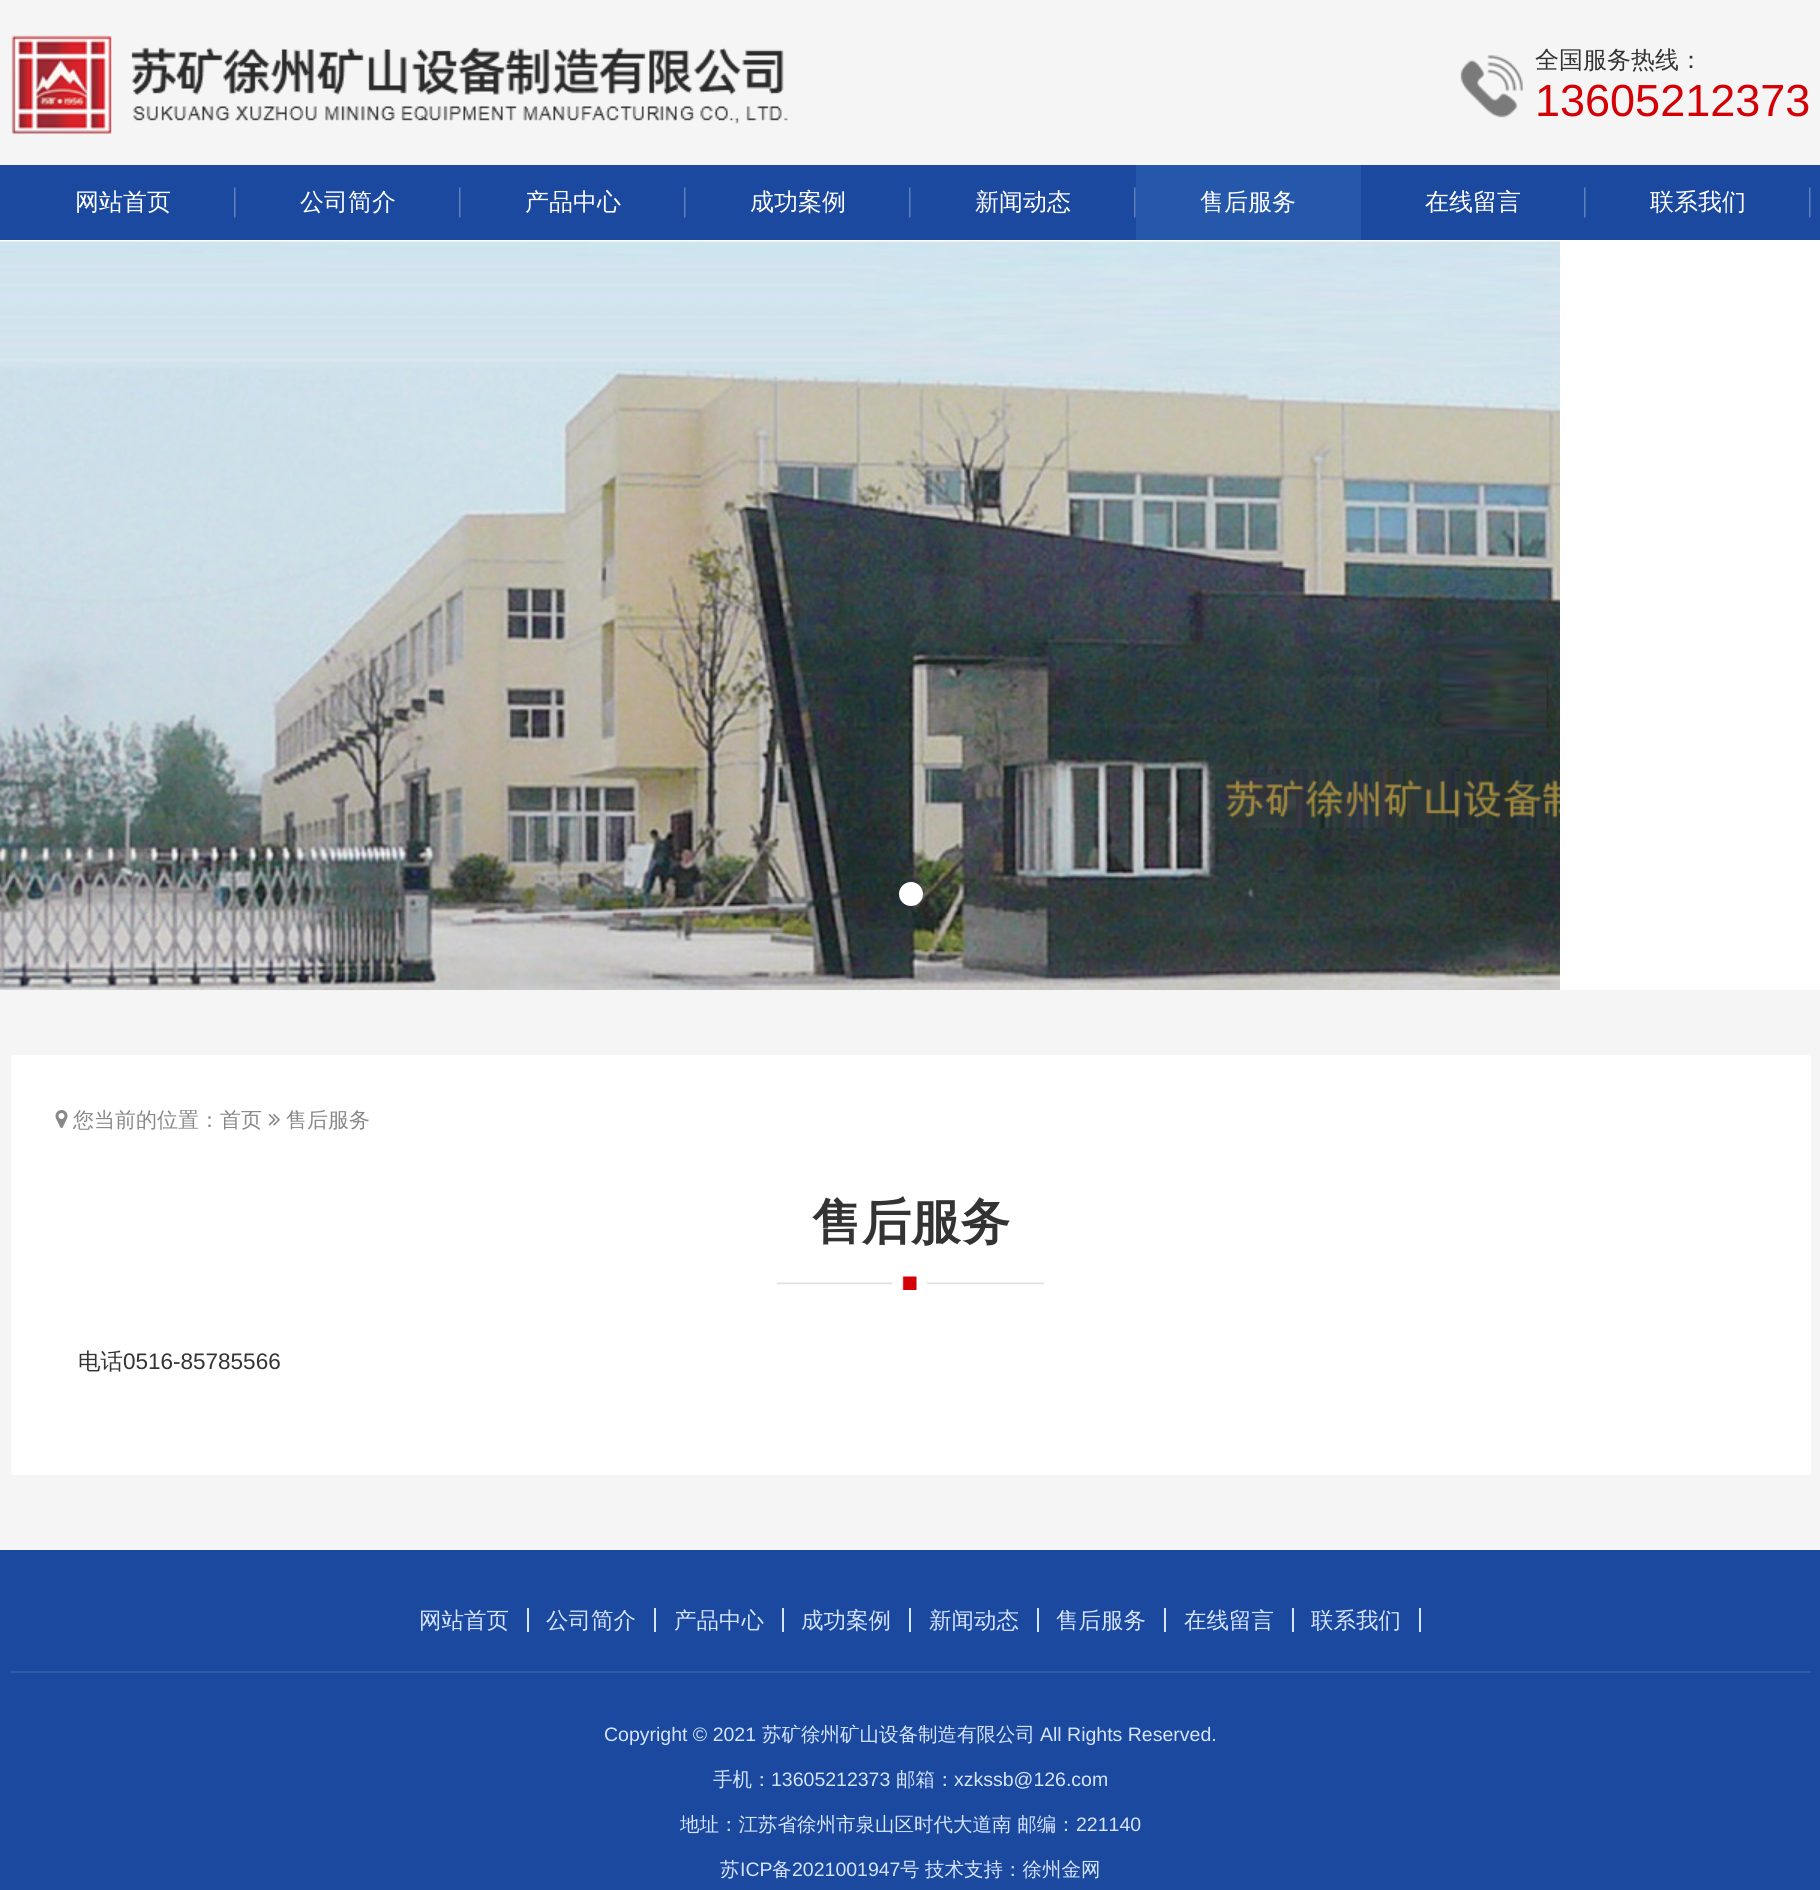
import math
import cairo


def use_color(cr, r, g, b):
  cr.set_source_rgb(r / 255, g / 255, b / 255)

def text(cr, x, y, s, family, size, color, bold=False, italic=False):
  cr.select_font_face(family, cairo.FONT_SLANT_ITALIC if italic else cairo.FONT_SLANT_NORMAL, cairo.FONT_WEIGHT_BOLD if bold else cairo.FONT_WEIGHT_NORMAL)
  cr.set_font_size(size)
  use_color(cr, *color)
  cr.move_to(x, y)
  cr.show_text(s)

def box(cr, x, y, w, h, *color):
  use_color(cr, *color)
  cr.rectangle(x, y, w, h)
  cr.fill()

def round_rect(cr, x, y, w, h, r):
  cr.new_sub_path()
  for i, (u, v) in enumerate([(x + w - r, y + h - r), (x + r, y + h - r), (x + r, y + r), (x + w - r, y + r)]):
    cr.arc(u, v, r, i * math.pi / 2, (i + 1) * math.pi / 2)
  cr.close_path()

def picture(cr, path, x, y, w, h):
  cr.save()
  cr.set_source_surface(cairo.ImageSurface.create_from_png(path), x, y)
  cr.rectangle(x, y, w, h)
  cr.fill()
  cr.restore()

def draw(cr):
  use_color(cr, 255, 255, 255)
  cr.paint()
  box(cr, 0, 0, 1820, 165, 245, 245, 245)
  picture(cr, "img_01.png", 11, 35, 777, 99)
  picture(cr, "img_02.png", 1460, 55, 63, 63)
  box(cr, 0, 165, 1820, 75, 27, 73, 160)
  picture(cr, "img_03.png", 234, 187, 2, 31)
  picture(cr, "img_03.png", 459, 187, 2, 31)
  picture(cr, "img_03.png", 684, 187, 2, 31)
  picture(cr, "img_03.png", 909, 187, 2, 31)
  picture(cr, "img_03.png", 1134, 187, 2, 31)
  box(cr, 1136, 165, 225, 75, 37, 87, 171)
  picture(cr, "img_03.png", 1584, 187, 2, 31)
  picture(cr, "img_03.png", 1809, 187, 2, 31)
  picture(cr, "img_04.png", 0, 241, 1560, 749)
  use_color(cr, 255, 255, 255)
  cr.arc(911, 894, 12, 0, 2 * math.pi)
  cr.fill()
  box(cr, 0, 990, 1820, 560, 245, 245, 245)
  use_color(cr, 255, 255, 255)
  round_rect(cr, 11, 1055, 1800, 420, 3)
  cr.fill()
  picture(cr, "img_05.png", 55, 1110, 13, 18)
  picture(cr, "img_06.png", 268, 1114, 12, 12)
  picture(cr, "img_07.png", 777, 1276, 267, 14)
  box(cr, 0, 1550, 1820, 340, 27, 73, 160)
  box(cr, 11, 1671, 1800, 2, 49, 91, 169)
  box(cr, 527, 1608, 2, 24, 213, 228, 255)
  box(cr, 654, 1608, 2, 24, 213, 228, 255)
  box(cr, 782, 1608, 2, 24, 213, 228, 255)
  box(cr, 909, 1608, 2, 24, 213, 228, 255)
  box(cr, 1037, 1608, 2, 24, 213, 228, 255)
  box(cr, 1164, 1608, 2, 24, 213, 228, 255)
  box(cr, 1292, 1608, 2, 24, 213, 228, 255)
  box(cr, 1419, 1608, 2, 24, 213, 228, 255)
  text(cr, 1535, 68, "全国服务热线：", "WenQuanYi Zen Hei Medium", 24, (51, 51, 51))
  text(cr, 1535, 116, "13605212373", "Liberation Sans", 45, (211, 0, 6))
  text(cr, 75, 210, "网站首页", "WenQuanYi Zen Hei Medium", 24, (255, 255, 255))
  text(cr, 300, 210, "公司简介", "WenQuanYi Zen Hei Medium", 24, (255, 255, 255))
  text(cr, 525, 210, "产品中心", "WenQuanYi Zen Hei Medium", 24, (255, 255, 255))
  text(cr, 750, 210, "成功案例", "WenQuanYi Zen Hei Medium", 24, (255, 255, 255))
  text(cr, 975, 210, "新闻动态", "WenQuanYi Zen Hei Medium", 24, (255, 255, 255))
  text(cr, 1200, 210, "售后服务", "WenQuanYi Zen Hei Medium", 24, (255, 255, 255))
  text(cr, 1425, 210, "在线留言", "WenQuanYi Zen Hei Medium", 24, (255, 255, 255))
  text(cr, 1650, 210, "联系我们", "WenQuanYi Zen Hei Medium", 24, (255, 255, 255))
  text(cr, 73, 1127, "您当前的位置：首页", "WenQuanYi Zen Hei Medium", 21, (136, 136, 136))
  text(cr, 286, 1127, "售后服务", "WenQuanYi Zen Hei Medium", 21, (136, 136, 136))
  text(cr, 812, 1239, "售后服务", "WenQuanYi Zen Hei", 49.5, (51, 51, 51), bold=True)
  text(cr, 78, 1369, "电话", "WenQuanYi Zen Hei Medium", 22.5, (51, 51, 51))
  text(cr, 123, 1369, "0516-85785566", "Liberation Sans", 22.5, (51, 51, 51))
  text(cr, 419, 1628, "网站首页", "WenQuanYi Zen Hei Medium", 22.5, (213, 228, 255))
  text(cr, 546, 1628, "公司简介", "WenQuanYi Zen Hei Medium", 22.5, (213, 228, 255))
  text(cr, 674, 1628, "产品中心", "WenQuanYi Zen Hei Medium", 22.5, (213, 228, 255))
  text(cr, 801, 1628, "成功案例", "WenQuanYi Zen Hei Medium", 22.5, (213, 228, 255))
  text(cr, 929, 1628, "新闻动态", "WenQuanYi Zen Hei Medium", 22.5, (213, 228, 255))
  text(cr, 1056, 1628, "售后服务", "WenQuanYi Zen Hei Medium", 22.5, (213, 228, 255))
  text(cr, 1184, 1628, "在线留言", "WenQuanYi Zen Hei Medium", 22.5, (213, 228, 255))
  text(cr, 1311, 1628, "联系我们", "WenQuanYi Zen Hei Medium", 22.5, (213, 228, 255))
  text(cr, 604, 1741, "Copyright © 2021", "Liberation Sans", 19.5, (213, 228, 255))
  text(cr, 762, 1741, "苏矿徐州矿山设备制造有限公司", "WenQuanYi Zen Hei Medium", 19.5, (213, 228, 255))
  text(cr, 1040, 1741, "All Rights Reserved.", "Liberation Sans", 19.5, (213, 228, 255))
  text(cr, 713, 1786, "手机：", "WenQuanYi Zen Hei Medium", 19.5, (213, 228, 255))
  text(cr, 771, 1786, "13605212373", "Liberation Sans", 19.5, (213, 228, 255))
  text(cr, 896, 1786, "邮箱：", "WenQuanYi Zen Hei Medium", 19.5, (213, 228, 255))
  text(cr, 954, 1786, "xzkssb@126.com", "Liberation Sans", 19.5, (213, 228, 255))
  text(cr, 680, 1831, "地址：江苏省徐州市泉山区时代大道南 邮编：", "WenQuanYi Zen Hei Medium", 19.5, (213, 228, 255))
  text(cr, 1076, 1831, "221140", "Liberation Sans", 19.5, (213, 228, 255))
  text(cr, 720, 1876, "苏", "WenQuanYi Zen Hei Medium", 19.5, (213, 228, 255))
  text(cr, 740, 1876, "ICP", "Liberation Sans", 19.5, (213, 228, 255))
  text(cr, 772, 1876, "备", "WenQuanYi Zen Hei Medium", 19.5, (213, 228, 255))
  text(cr, 792, 1876, "2021001947", "Liberation Sans", 19.5, (213, 228, 255))
  text(cr, 900, 1876, "号", "WenQuanYi Zen Hei Medium", 19.5, (213, 228, 255))
  text(cr, 925, 1876, "技术支持：徐州金网", "WenQuanYi Zen Hei Medium", 19.5, (213, 228, 255))


surface = cairo.ImageSurface(cairo.FORMAT_RGB24, 1820, 1890)
cr = cairo.Context(surface)
options = cairo.FontOptions()
options.set_hint_metrics(cairo.HINT_METRICS_OFF)
options.set_hint_style(cairo.HINT_STYLE_NONE)
cr.set_font_options(options)
cr.set_miter_limit(4)
draw(cr)
surface.write_to_png("out.png")
